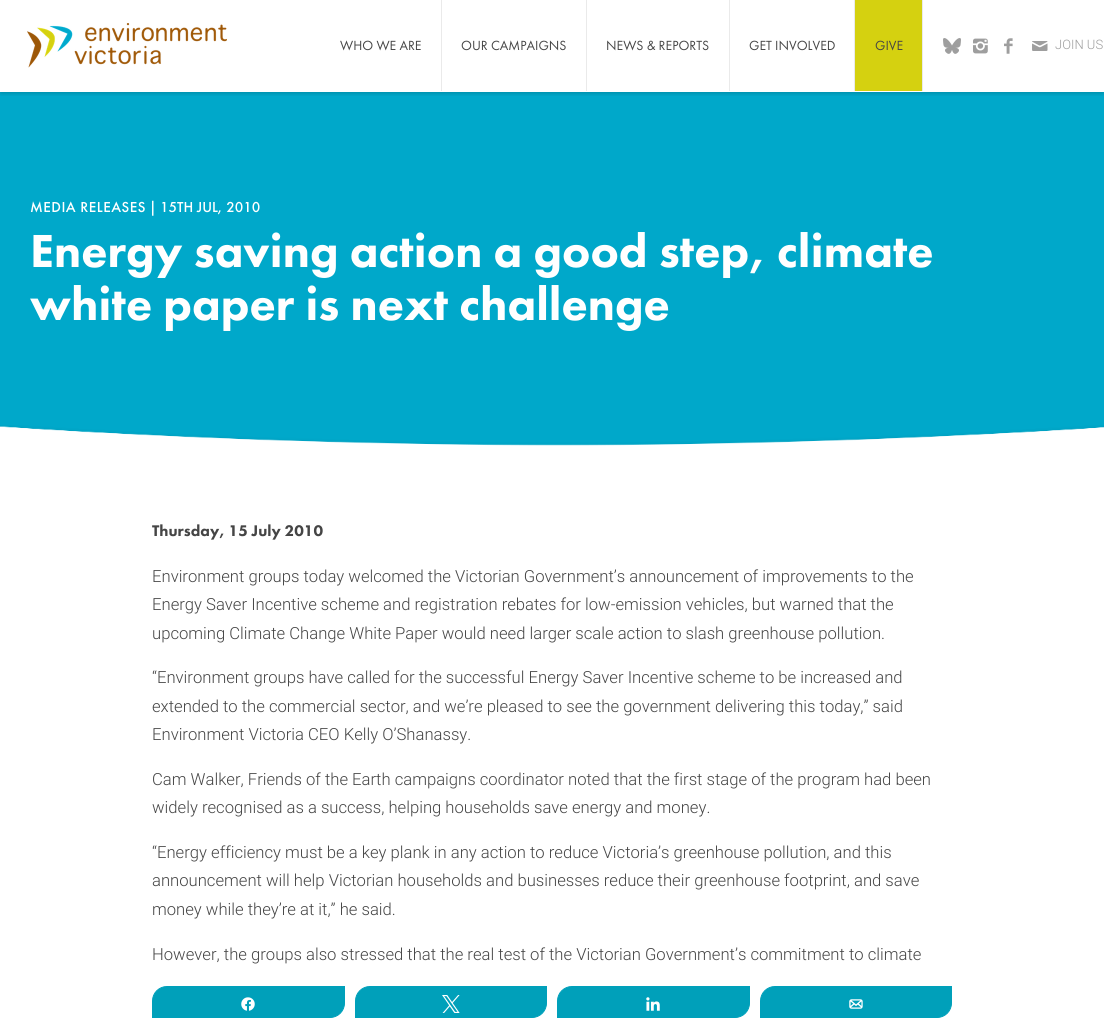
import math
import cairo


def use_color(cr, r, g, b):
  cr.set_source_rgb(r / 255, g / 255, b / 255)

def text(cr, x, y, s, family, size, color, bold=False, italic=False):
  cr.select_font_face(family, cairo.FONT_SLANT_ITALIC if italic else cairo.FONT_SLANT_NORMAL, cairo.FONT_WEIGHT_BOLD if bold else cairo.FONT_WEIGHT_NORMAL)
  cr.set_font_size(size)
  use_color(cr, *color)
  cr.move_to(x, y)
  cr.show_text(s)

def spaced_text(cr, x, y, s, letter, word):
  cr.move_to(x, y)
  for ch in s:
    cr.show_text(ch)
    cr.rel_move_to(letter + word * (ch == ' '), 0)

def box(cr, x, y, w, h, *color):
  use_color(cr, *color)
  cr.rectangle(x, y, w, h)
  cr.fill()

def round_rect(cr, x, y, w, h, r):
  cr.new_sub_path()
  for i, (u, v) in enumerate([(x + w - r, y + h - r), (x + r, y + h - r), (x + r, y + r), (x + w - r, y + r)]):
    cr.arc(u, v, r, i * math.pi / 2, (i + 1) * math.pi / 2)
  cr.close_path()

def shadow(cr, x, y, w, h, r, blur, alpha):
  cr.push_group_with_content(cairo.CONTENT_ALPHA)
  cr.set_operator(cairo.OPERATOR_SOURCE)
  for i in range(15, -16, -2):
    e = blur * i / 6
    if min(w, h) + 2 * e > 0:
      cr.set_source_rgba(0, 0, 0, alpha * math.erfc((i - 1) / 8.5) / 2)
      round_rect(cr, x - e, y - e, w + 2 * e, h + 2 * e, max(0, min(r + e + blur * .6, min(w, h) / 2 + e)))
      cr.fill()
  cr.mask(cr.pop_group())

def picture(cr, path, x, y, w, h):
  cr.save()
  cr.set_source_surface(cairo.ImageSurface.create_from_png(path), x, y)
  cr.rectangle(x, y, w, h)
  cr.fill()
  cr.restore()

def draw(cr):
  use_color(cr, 255, 255, 255)
  cr.paint()
  box(cr, 0, 92, 1104, 354, 0, 168, 202)
  cr.save()
  cr.rectangle(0, 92, 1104, 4)
  cr.clip()
  use_color(cr, 0, 0, 0)
  shadow(cr, 1, 3, 1102, 90, 0, 2.5, 0.2)
  cr.restore()
  picture(cr, "img_01.png", 27, 23, 200, 45)
  box(cr, 441, 0, 1, 91, 234, 234, 234)
  box(cr, 586, 0, 1, 91, 234, 234, 234)
  box(cr, 729, 0, 1, 91, 234, 234, 234)
  box(cr, 854, 0, 1, 91, 234, 234, 234)
  box(cr, 855, 0, 67, 91, 213, 209, 16)
  box(cr, 922, 0, 1, 91, 234, 234, 234)
  picture(cr, "img_02.png", 943, 38, 18, 16)
  picture(cr, "img_03.png", 973, 38, 15, 16)
  picture(cr, "img_04.png", 1004, 38, 9, 16)
  picture(cr, "img_05.png", 1032, 41, 16, 10)
  picture(cr, "img_06.png", 0, 425, 1104, 23)
  use_color(cr, 0, 160, 186)
  cr.new_path()
  cr.move_to(167, 986.5)
  cr.line_to(344.5, 986.5)
  cr.line_to(344.5, 1003)
  cr.curve_to(344.5, 1011, 338, 1017.5, 330, 1017.5)
  cr.line_to(152.5, 1017.5)
  cr.line_to(152.5, 1001)
  cr.curve_to(152.5, 993, 159, 986.5, 167, 986.5)
  cr.close_path()
  cr.fill_preserve()
  cr.set_line_width(1)
  cr.stroke()
  picture(cr, "img_07.png", 241, 997, 14, 14)
  cr.new_path()
  cr.move_to(370, 986.5)
  cr.line_to(546.5, 986.5)
  cr.line_to(546.5, 1003)
  cr.curve_to(546.5, 1011, 540, 1017.5, 532, 1017.5)
  cr.line_to(355.5, 1017.5)
  cr.line_to(355.5, 1001)
  cr.curve_to(355.5, 993, 362, 986.5, 370, 986.5)
  cr.close_path()
  cr.fill_preserve()
  cr.stroke()
  picture(cr, "img_08.png", 442, 995, 18, 18)
  cr.new_path()
  cr.move_to(572, 986.5)
  cr.line_to(749.5, 986.5)
  cr.line_to(749.5, 1003)
  cr.curve_to(749.5, 1011, 743, 1017.5, 735, 1017.5)
  cr.line_to(557.5, 1017.5)
  cr.line_to(557.5, 1001)
  cr.curve_to(557.5, 993, 564, 986.5, 572, 986.5)
  cr.close_path()
  cr.fill_preserve()
  cr.stroke()
  picture(cr, "img_09.png", 646, 997, 14, 14)
  cr.new_path()
  cr.move_to(775, 986.5)
  cr.line_to(951.5, 986.5)
  cr.line_to(951.5, 1003)
  cr.curve_to(951.5, 1011, 945, 1017.5, 937, 1017.5)
  cr.line_to(760.5, 1017.5)
  cr.line_to(760.5, 1001)
  cr.curve_to(760.5, 993, 767, 986.5, 775, 986.5)
  cr.close_path()
  cr.fill_preserve()
  cr.stroke()
  picture(cr, "img_10.png", 849, 999, 14, 10)
  text(cr, 340, 50, "WHO WE ARE", "Futura PT", 13.75, (69, 69, 69))
  text(cr, 461, 50, "OUR CAMPAIGNS", "Futura PT", 13.75, (69, 69, 69))
  text(cr, 606, 50, "NEWS & REPORTS", "Futura PT", 13.75, (69, 69, 69))
  text(cr, 749, 50, "GET INVOLVED", "Futura PT", 13.75, (69, 69, 69))
  text(cr, 875, 50, "GIVE", "Futura PT", 13.75, (69, 69, 69))
  text(cr, 1055, 49, "JOIN US", "Roboto Light", 13, (158, 158, 158))
  cr.select_font_face("Futura PT Medium")
  cr.set_font_size(15)
  use_color(cr, 255, 255, 255)
  spaced_text(cr, 30, 212, "MEDIA RELEASES", 0.5, 0)
  text(cr, 149, 212, "| 15TH JUL, 2010", "Futura PT Medium", 15, (255, 255, 255))
  text(cr, 30, 267, "Energy saving action a good step, climate", "Futura PT Black", 48, (255, 255, 255))
  text(cr, 30, 320, "white paper is next challenge", "Futura PT Black", 48, (255, 255, 255))
  text(cr, 152, 536, "Thursday, 15 July 2010", "Futura PT Black", 16, (69, 69, 69))
  text(cr, 152, 582, "Environment groups today welcomed the Victorian Government’s announcement of improvements to the", "Roboto Light", 16.65, (69, 69, 69))
  text(cr, 152, 610, "Energy Saver Incentive scheme and registration rebates for low-emission vehicles, but warned that the", "Roboto Light", 16.65, (69, 69, 69))
  text(cr, 152, 639, "upcoming Climate Change White Paper would need larger scale action to slash greenhouse pollution.", "Roboto Light", 16.65, (69, 69, 69))
  text(cr, 152, 683, "“Environment groups have called for the successful Energy Saver Incentive scheme to be increased and", "Roboto Light", 16.65, (69, 69, 69))
  text(cr, 152, 712, "extended to the commercial sector, and we’re pleased to see the government delivering this today,” said", "Roboto Light", 16.65, (69, 69, 69))
  text(cr, 152, 740, "Environment Victoria CEO Kelly O’Shanassy.", "Roboto Light", 16.65, (69, 69, 69))
  text(cr, 152, 785, "Cam Walker, Friends of the Earth campaigns coordinator noted that the first stage of the program had been", "Roboto Light", 16.65, (69, 69, 69))
  text(cr, 152, 813, "widely recognised as a success, helping households save energy and money.", "Roboto Light", 16.65, (69, 69, 69))
  text(cr, 152, 858, "“Energy efficiency must be a key plank in any action to reduce Victoria’s greenhouse pollution, and this", "Roboto Light", 16.65, (69, 69, 69))
  text(cr, 152, 886, "announcement will help Victorian households and businesses reduce their greenhouse footprint, and save", "Roboto Light", 16.65, (69, 69, 69))
  text(cr, 152, 915, "money while they’re at it,” he said.", "Roboto Light", 16.65, (69, 69, 69))
  text(cr, 152, 960, "However, the groups also stressed that the real test of the Victorian Government’s commitment to climate", "Roboto Light", 16.65, (69, 69, 69))


surface = cairo.ImageSurface(cairo.FORMAT_RGB24, 1104, 1030)
cr = cairo.Context(surface)
options = cairo.FontOptions()
options.set_hint_metrics(cairo.HINT_METRICS_OFF)
options.set_hint_style(cairo.HINT_STYLE_NONE)
cr.set_font_options(options)
cr.set_miter_limit(4)
draw(cr)
surface.write_to_png("out.png")
